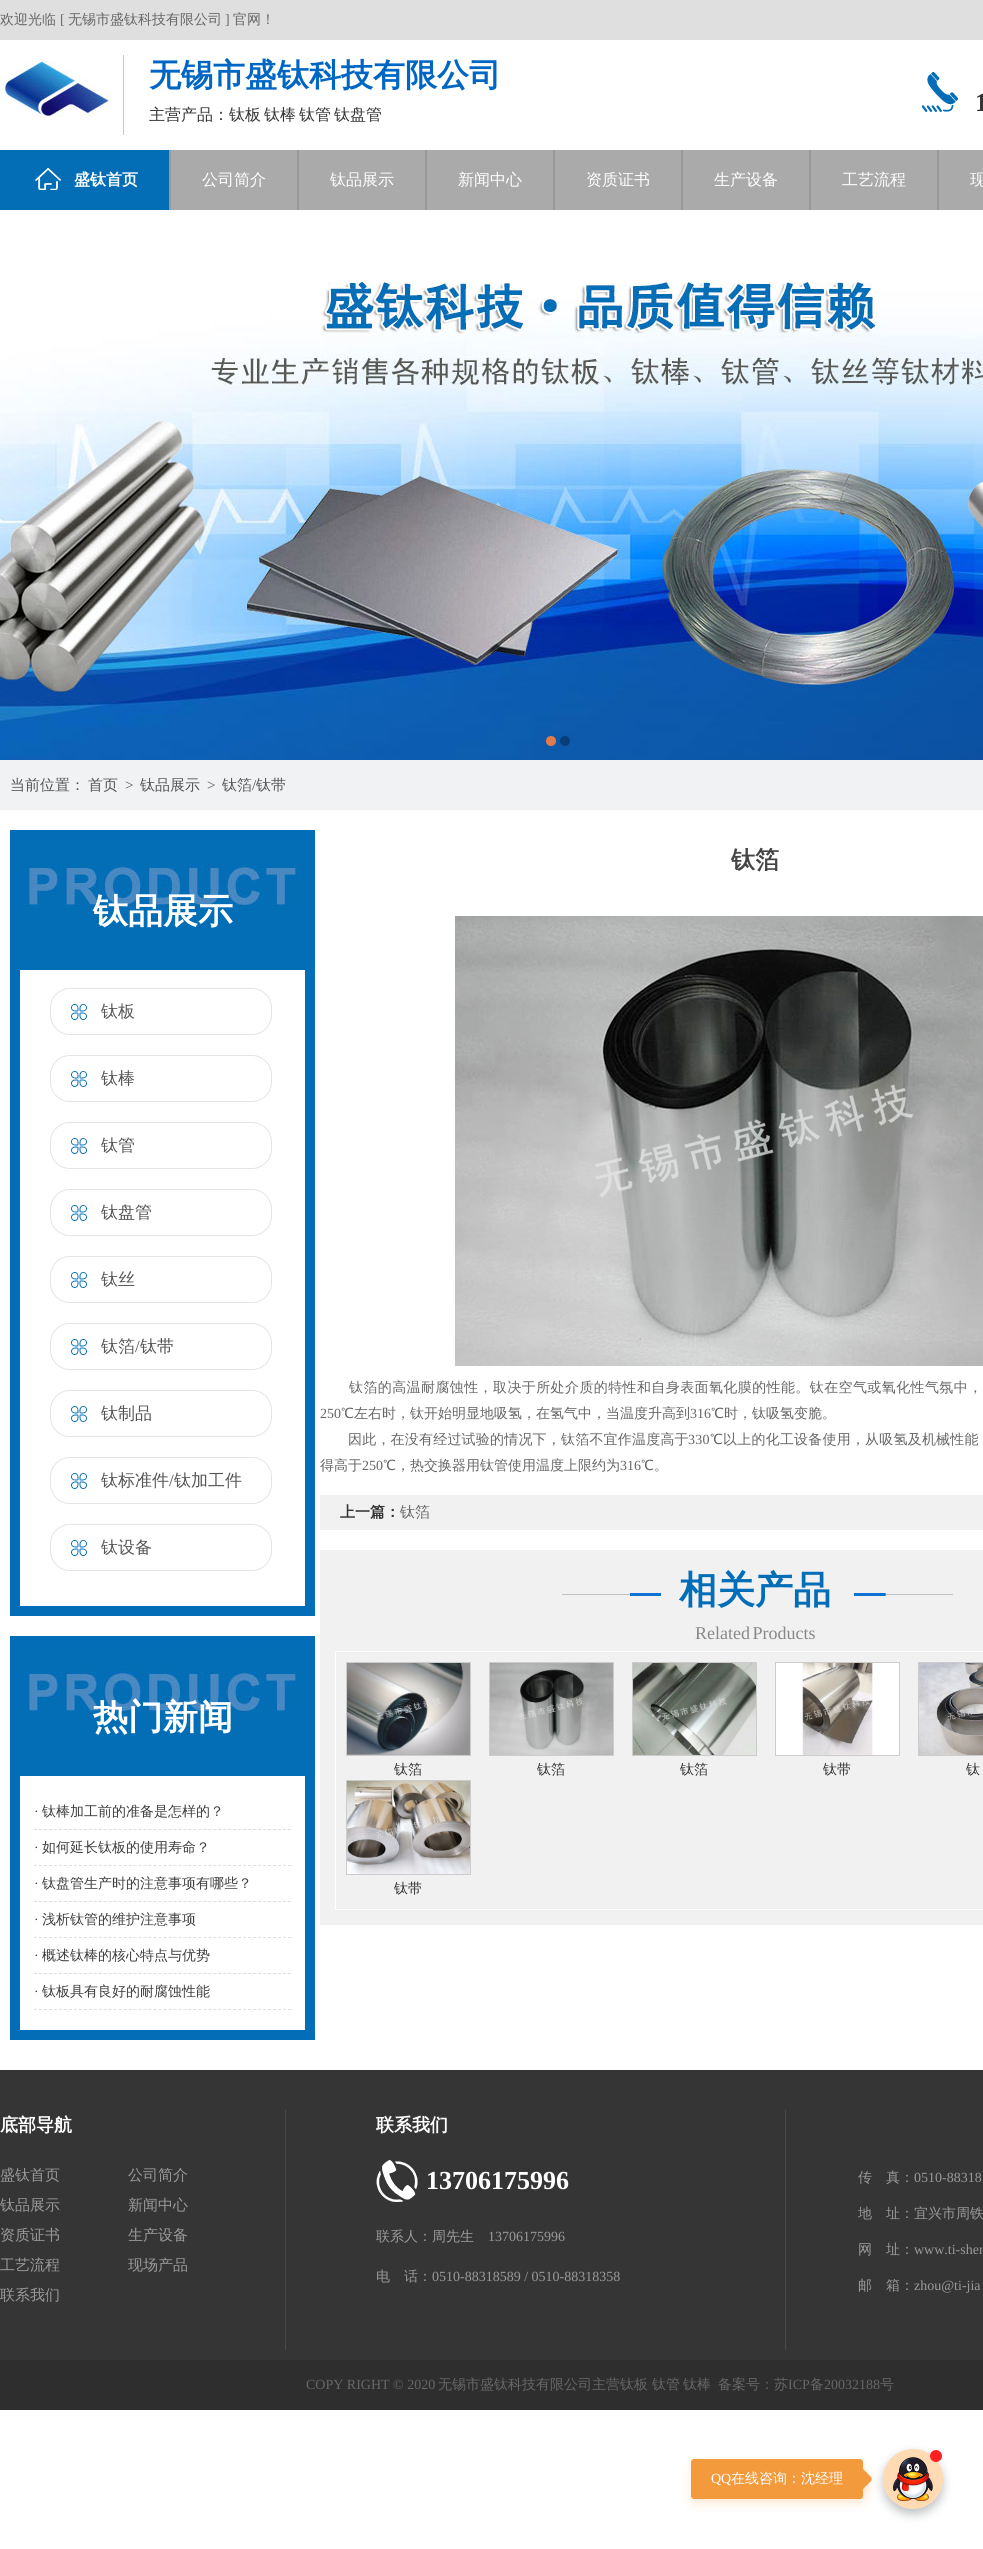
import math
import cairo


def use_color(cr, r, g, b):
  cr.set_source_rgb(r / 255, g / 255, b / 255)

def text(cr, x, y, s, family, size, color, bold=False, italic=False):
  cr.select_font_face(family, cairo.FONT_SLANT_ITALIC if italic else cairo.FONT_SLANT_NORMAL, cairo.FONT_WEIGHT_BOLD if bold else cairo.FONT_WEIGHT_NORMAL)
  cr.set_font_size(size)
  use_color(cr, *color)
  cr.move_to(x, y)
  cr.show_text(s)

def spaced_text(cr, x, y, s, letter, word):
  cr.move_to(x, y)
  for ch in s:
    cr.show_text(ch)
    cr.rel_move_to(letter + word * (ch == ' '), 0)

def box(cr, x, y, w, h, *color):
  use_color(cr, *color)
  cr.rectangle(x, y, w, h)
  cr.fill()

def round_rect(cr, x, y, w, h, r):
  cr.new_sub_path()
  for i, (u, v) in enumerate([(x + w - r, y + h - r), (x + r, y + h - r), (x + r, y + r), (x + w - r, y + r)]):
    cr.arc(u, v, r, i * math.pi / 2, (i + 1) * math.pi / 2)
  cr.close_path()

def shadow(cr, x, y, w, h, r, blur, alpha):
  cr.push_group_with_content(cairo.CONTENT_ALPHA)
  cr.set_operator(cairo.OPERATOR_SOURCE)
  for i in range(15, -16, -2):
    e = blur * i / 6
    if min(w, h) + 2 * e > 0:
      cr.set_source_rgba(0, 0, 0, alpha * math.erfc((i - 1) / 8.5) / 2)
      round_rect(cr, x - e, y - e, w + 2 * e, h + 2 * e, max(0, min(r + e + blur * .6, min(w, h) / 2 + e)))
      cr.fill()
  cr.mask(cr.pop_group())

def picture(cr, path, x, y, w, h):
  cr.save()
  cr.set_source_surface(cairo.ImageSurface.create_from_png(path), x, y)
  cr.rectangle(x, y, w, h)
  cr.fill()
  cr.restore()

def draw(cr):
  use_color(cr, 255, 255, 255)
  cr.paint()
  box(cr, 0, 0, 983, 40, 223, 223, 223)
  picture(cr, "img_01.png", 0, 61, 112, 56)
  box(cr, 123, 55, 1, 80, 201, 201, 201)
  picture(cr, "img_02.png", 922, 72, 36, 40)
  box(cr, 171, 150, 812, 60, 170, 170, 170)
  box(cr, 0, 150, 169, 60, 3, 110, 182)
  box(cr, 169, 150, 2, 60, 153, 153, 153)
  picture(cr, "img_03.png", 35, 168, 26, 22)
  box(cr, 297, 150, 2, 60, 153, 153, 153)
  box(cr, 425, 150, 2, 60, 153, 153, 153)
  box(cr, 553, 150, 2, 60, 153, 153, 153)
  box(cr, 681, 150, 2, 60, 153, 153, 153)
  box(cr, 809, 150, 2, 60, 153, 153, 153)
  box(cr, 937, 150, 2, 60, 153, 153, 153)
  picture(cr, "img_04.png", 0, 282, 983, 478)
  use_color(cr, 226, 122, 76)
  cr.arc(551, 741, 5, 0, 2 * math.pi)
  cr.fill()
  use_color(cr, 9, 63, 120)
  cr.arc(565, 741, 5, 0, 2 * math.pi)
  cr.fill()
  box(cr, 0, 760, 983, 50, 241, 242, 244)
  cr.rectangle(15, 835, 295, 776)
  use_color(cr, 3, 110, 183)
  cr.set_line_width(10)
  cr.stroke()
  picture(cr, "img_05.png", 20, 840, 285, 130)
  picture(cr, "img_06.png", 71, 1004, 16, 16)
  round_rect(cr, 50.5, 988.5, 221, 46, 19.5)
  use_color(cr, 228, 228, 228)
  cr.set_line_width(1)
  cr.stroke()
  picture(cr, "img_06.png", 71, 1071, 16, 16)
  round_rect(cr, 50.5, 1055.5, 221, 46, 19.5)
  cr.stroke()
  picture(cr, "img_06.png", 71, 1138, 16, 16)
  round_rect(cr, 50.5, 1122.5, 221, 46, 19.5)
  cr.stroke()
  picture(cr, "img_06.png", 71, 1205, 16, 16)
  round_rect(cr, 50.5, 1189.5, 221, 46, 19.5)
  cr.stroke()
  picture(cr, "img_06.png", 71, 1272, 16, 16)
  round_rect(cr, 50.5, 1256.5, 221, 46, 19.5)
  cr.stroke()
  picture(cr, "img_06.png", 71, 1339, 16, 16)
  round_rect(cr, 50.5, 1323.5, 221, 46, 19.5)
  cr.stroke()
  picture(cr, "img_06.png", 71, 1406, 16, 16)
  round_rect(cr, 50.5, 1390.5, 221, 46, 19.5)
  cr.stroke()
  picture(cr, "img_06.png", 71, 1473, 16, 16)
  round_rect(cr, 50.5, 1457.5, 221, 46, 19.5)
  cr.stroke()
  picture(cr, "img_06.png", 71, 1540, 16, 16)
  round_rect(cr, 50.5, 1524.5, 221, 46, 19.5)
  cr.stroke()
  cr.rectangle(15, 1641, 295, 394)
  use_color(cr, 3, 110, 183)
  cr.set_line_width(10)
  cr.stroke()
  picture(cr, "img_05.png", 20, 1646, 285, 130)
  cr.new_path()
  cr.move_to(34, 1829.5)
  cr.line_to(291, 1829.5)
  use_color(cr, 222, 222, 222)
  cr.set_line_width(1)
  cr.set_dash([3, 1.98])
  cr.stroke()
  cr.new_path()
  cr.move_to(34, 1865.5)
  cr.line_to(291, 1865.5)
  cr.stroke()
  cr.new_path()
  cr.move_to(34, 1901.5)
  cr.line_to(291, 1901.5)
  cr.stroke()
  cr.new_path()
  cr.move_to(34, 1937.5)
  cr.line_to(291, 1937.5)
  cr.stroke()
  cr.new_path()
  cr.move_to(34, 1973.5)
  cr.line_to(291, 1973.5)
  cr.stroke()
  cr.new_path()
  cr.move_to(34, 2009.5)
  cr.line_to(291, 2009.5)
  cr.stroke()
  picture(cr, "img_07.png", 455, 916, 528, 450)
  box(cr, 320, 1495, 663, 35, 241, 241, 241)
  box(cr, 320, 1550, 663, 375, 241, 241, 241)
  picture(cr, "img_08.png", 562, 1593, 99, 3)
  picture(cr, "img_09.png", 854, 1593, 99, 3)
  cr.rectangle(335.5, 1651.5, 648, 258)
  use_color(cr, 255, 255, 255)
  cr.set_dash([])
  cr.stroke()
  cr.rectangle(346.5, 1662.5, 124, 93)
  use_color(cr, 204, 204, 204)
  cr.stroke()
  picture(cr, "img_10.png", 347, 1663, 123, 92)
  cr.rectangle(489.5, 1662.5, 124, 93)
  cr.stroke()
  picture(cr, "img_11.png", 490, 1663, 123, 92)
  cr.rectangle(632.5, 1662.5, 124, 93)
  cr.stroke()
  picture(cr, "img_12.png", 633, 1663, 123, 92)
  cr.rectangle(775.5, 1662.5, 124, 93)
  cr.stroke()
  picture(cr, "img_13.png", 776, 1663, 123, 92)
  cr.rectangle(918.5, 1662.5, 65, 93)
  cr.stroke()
  picture(cr, "img_14.png", 919, 1663, 64, 92)
  cr.rectangle(346.5, 1780.5, 124, 94)
  cr.stroke()
  picture(cr, "img_15.png", 347, 1781, 123, 93)
  box(cr, 0, 2070, 983, 290, 53, 53, 53)
  box(cr, 285, 2110, 1, 240, 74, 74, 74)
  box(cr, 785, 2110, 1, 240, 74, 74, 74)
  picture(cr, "img_16.png", 376, 2160, 42, 42)
  box(cr, 0, 2360, 983, 50, 46, 46, 46)
  use_color(cr, 35, 50, 56)
  shadow(cr, 883, 2454, 60, 60, 30, 5, 0.3)
  use_color(cr, 243, 154, 61)
  shadow(cr, 849, 2474, 20, 20, 3, 5, 0.2)
  picture(cr, "img_17.png", 883, 2449, 60, 60)
  use_color(cr, 255, 33, 34)
  cr.arc(936, 2456, 6, 0, 2 * math.pi)
  cr.fill()
  use_color(cr, 243, 154, 61)
  shadow(cr, 691, 2464, 172, 40, 3, 5, 0.2)
  use_color(cr, 243, 154, 61)
  cr.new_path()
  cr.move_to(847, 2477)
  cr.line_to(857, 2467)
  cr.curve_to(858, 2466, 860, 2466, 861, 2467)
  cr.line_to(871, 2477)
  cr.curve_to(872, 2478, 872, 2480, 871, 2481)
  cr.line_to(861, 2491)
  cr.curve_to(860, 2492, 858, 2492, 857, 2491)
  cr.line_to(847, 2481)
  cr.curve_to(846, 2480, 846, 2478, 847, 2477)
  cr.close_path()
  cr.fill()
  round_rect(cr, 691, 2459, 172, 40, 3)
  cr.fill()
  text(cr, 0, 24, "欢迎光临", "WenQuanYi Zen Hei Medium", 14, (102, 102, 102))
  text(cr, 60, 24, "[", "Liberation Serif", 14, (102, 102, 102))
  text(cr, 68, 24, "无锡市盛钛科技有限公司", "WenQuanYi Zen Hei Medium", 14, (102, 102, 102))
  text(cr, 225, 24, "]", "Liberation Serif", 14, (102, 102, 102))
  text(cr, 233, 24, "官网！", "WenQuanYi Zen Hei Medium", 14, (102, 102, 102))
  text(cr, 149, 86, "无锡市盛钛科技有限公司", "WenQuanYi Zen Hei", 32, (0, 102, 196), bold=True)
  text(cr, 149, 120, "主营产品：钛板", "WenQuanYi Zen Hei Medium", 16, (51, 51, 51))
  text(cr, 264, 120, "钛棒", "WenQuanYi Zen Hei Medium", 16, (51, 51, 51))
  text(cr, 299, 120, "钛管", "WenQuanYi Zen Hei Medium", 16, (51, 51, 51))
  text(cr, 334, 120, "钛盘管", "WenQuanYi Zen Hei Medium", 16, (51, 51, 51))
  text(cr, 975, 111, "1", "Liberation Serif", 26, (51, 51, 51), bold=True)
  text(cr, 74, 185, "盛钛首页", "WenQuanYi Zen Hei", 16, (255, 255, 255), bold=True)
  text(cr, 202, 185, "公司简介", "WenQuanYi Zen Hei Medium", 16, (255, 255, 255))
  text(cr, 330, 185, "钛品展示", "WenQuanYi Zen Hei Medium", 16, (255, 255, 255))
  text(cr, 458, 185, "新闻中心", "WenQuanYi Zen Hei Medium", 16, (255, 255, 255))
  text(cr, 586, 185, "资质证书", "WenQuanYi Zen Hei Medium", 16, (255, 255, 255))
  text(cr, 714, 185, "生产设备", "WenQuanYi Zen Hei Medium", 16, (255, 255, 255))
  text(cr, 842, 185, "工艺流程", "WenQuanYi Zen Hei Medium", 16, (255, 255, 255))
  text(cr, 970, 185, "现", "WenQuanYi Zen Hei Medium", 16, (255, 255, 255))
  text(cr, 10, 790, "当前位置：", "WenQuanYi Zen Hei Medium", 15, (85, 85, 85))
  text(cr, 88, 790, "首页", "WenQuanYi Zen Hei Medium", 15, (85, 85, 85))
  text(cr, 125, 790, ">", "Liberation Serif", 15, (85, 85, 85))
  text(cr, 140, 790, "钛品展示", "WenQuanYi Zen Hei Medium", 15, (85, 85, 85))
  text(cr, 207, 790, ">", "Liberation Serif", 15, (85, 85, 85))
  text(cr, 222, 790, "钛箔", "WenQuanYi Zen Hei Medium", 15, (85, 85, 85))
  text(cr, 252, 790, "/", "Liberation Serif", 15, (85, 85, 85))
  text(cr, 256, 790, "钛带", "WenQuanYi Zen Hei Medium", 15, (85, 85, 85))
  text(cr, 93, 923, "钛品展示", "WenQuanYi Zen Hei", 35, (255, 255, 255), bold=True)
  text(cr, 101, 1017, "钛板", "WenQuanYi Zen Hei Medium", 17, (85, 85, 85))
  text(cr, 101, 1084, "钛棒", "WenQuanYi Zen Hei Medium", 17, (85, 85, 85))
  text(cr, 101, 1151, "钛管", "WenQuanYi Zen Hei Medium", 17, (85, 85, 85))
  text(cr, 101, 1218, "钛盘管", "WenQuanYi Zen Hei Medium", 17, (85, 85, 85))
  text(cr, 101, 1285, "钛丝", "WenQuanYi Zen Hei Medium", 17, (85, 85, 85))
  text(cr, 101, 1352, "钛箔", "WenQuanYi Zen Hei Medium", 17, (85, 85, 85))
  text(cr, 135, 1352, "/", "Liberation Serif", 17, (85, 85, 85))
  text(cr, 140, 1352, "钛带", "WenQuanYi Zen Hei Medium", 17, (85, 85, 85))
  text(cr, 101, 1419, "钛制品", "WenQuanYi Zen Hei Medium", 17, (85, 85, 85))
  text(cr, 101, 1486, "钛标准件", "WenQuanYi Zen Hei Medium", 17, (85, 85, 85))
  text(cr, 169, 1486, "/", "Liberation Serif", 17, (85, 85, 85))
  text(cr, 174, 1486, "钛加工件", "WenQuanYi Zen Hei Medium", 17, (85, 85, 85))
  text(cr, 101, 1553, "钛设备", "WenQuanYi Zen Hei Medium", 17, (85, 85, 85))
  text(cr, 93, 1729, "热门新闻", "WenQuanYi Zen Hei", 35, (255, 255, 255), bold=True)
  text(cr, 34, 1816, "·", "Liberation Serif", 14, (61, 61, 61))
  text(cr, 42, 1816, "钛棒加工前的准备是怎样的？", "WenQuanYi Zen Hei Medium", 14, (61, 61, 61))
  text(cr, 34, 1852, "·", "Liberation Serif", 14, (61, 61, 61))
  text(cr, 42, 1852, "如何延长钛板的使用寿命？", "WenQuanYi Zen Hei Medium", 14, (61, 61, 61))
  text(cr, 34, 1888, "·", "Liberation Serif", 14, (61, 61, 61))
  text(cr, 42, 1888, "钛盘管生产时的注意事项有哪些？", "WenQuanYi Zen Hei Medium", 14, (61, 61, 61))
  text(cr, 34, 1924, "·", "Liberation Serif", 14, (61, 61, 61))
  text(cr, 42, 1924, "浅析钛管的维护注意事项", "WenQuanYi Zen Hei Medium", 14, (61, 61, 61))
  text(cr, 34, 1960, "·", "Liberation Serif", 14, (61, 61, 61))
  text(cr, 42, 1960, "概述钛棒的核心特点与优势", "WenQuanYi Zen Hei Medium", 14, (61, 61, 61))
  text(cr, 34, 1996, "·", "Liberation Serif", 14, (61, 61, 61))
  text(cr, 42, 1996, "钛板具有良好的耐腐蚀性能", "WenQuanYi Zen Hei Medium", 14, (61, 61, 61))
  text(cr, 731, 868, "钛箔", "WenQuanYi Zen Hei", 24, (68, 68, 68), bold=True)
  cr.select_font_face("WenQuanYi Zen Hei Medium")
  cr.set_font_size(14)
  use_color(cr, 102, 102, 102)
  spaced_text(cr, 349, 1392, "钛箔的高温耐腐蚀性，取决于所处介质的特性和自身表面氧化膜的性能。钛在空气或氧化性气氛中，", 0.4, 0)
  text(cr, 320, 1418, "250", "Liberation Serif", 14, (102, 102, 102))
  text(cr, 341, 1418, "℃左右时，钛开始明显地吸氢，在氢气中，当温度升高到", "WenQuanYi Zen Hei Medium", 14, (102, 102, 102))
  text(cr, 690, 1418, "316", "Liberation Serif", 14, (102, 102, 102))
  text(cr, 711, 1418, "℃时，钛吸氢变脆。", "WenQuanYi Zen Hei Medium", 14, (102, 102, 102))
  spaced_text(cr, 348, 1444, "因此，在没有经过试验的情况下，钛箔不宜作温度高于", 0.2, 0)
  cr.select_font_face("Liberation Serif")
  spaced_text(cr, 688, 1444, "330", 0.2, 0)
  cr.select_font_face("WenQuanYi Zen Hei Medium")
  spaced_text(cr, 710, 1444, "℃以上的化工设备使用，从吸氢及机械性能", 0.2, 0)
  text(cr, 320, 1470, "得高于", "WenQuanYi Zen Hei Medium", 14, (102, 102, 102))
  text(cr, 362, 1470, "250", "Liberation Serif", 14, (102, 102, 102))
  text(cr, 383, 1470, "℃，热交换器用钛管使用温度上限约为", "WenQuanYi Zen Hei Medium", 14, (102, 102, 102))
  text(cr, 620, 1470, "316", "Liberation Serif", 14, (102, 102, 102))
  text(cr, 641, 1470, "℃。", "WenQuanYi Zen Hei Medium", 14, (102, 102, 102))
  text(cr, 340, 1517, "上一篇：", "WenQuanYi Zen Hei", 15, (51, 51, 51), bold=True)
  text(cr, 400, 1517, "钛箔", "WenQuanYi Zen Hei Medium", 15, (102, 102, 102))
  text(cr, 679, 1603, "相关产品", "WenQuanYi Zen Hei", 38, (3, 110, 183), bold=True)
  cr.select_font_face("Liberation Serif")
  cr.set_font_size(18)
  use_color(cr, 136, 136, 136)
  spaced_text(cr, 695, 1639, "Related Products", 0, -2)
  text(cr, 394, 1774, "钛箔", "WenQuanYi Zen Hei Medium", 14, (51, 51, 51))
  text(cr, 537, 1774, "钛箔", "WenQuanYi Zen Hei Medium", 14, (51, 51, 51))
  text(cr, 680, 1774, "钛箔", "WenQuanYi Zen Hei Medium", 14, (51, 51, 51))
  text(cr, 823, 1774, "钛带", "WenQuanYi Zen Hei Medium", 14, (51, 51, 51))
  text(cr, 966, 1774, "钛", "WenQuanYi Zen Hei Medium", 14, (51, 51, 51))
  text(cr, 394, 1893, "钛带", "WenQuanYi Zen Hei Medium", 14, (51, 51, 51))
  text(cr, 0, 2131, "底部导航", "WenQuanYi Zen Hei", 18, (255, 255, 255), bold=True)
  text(cr, 0, 2180, "盛钛首页", "WenQuanYi Zen Hei Medium", 15, (154, 154, 154))
  text(cr, 128, 2180, "公司简介", "WenQuanYi Zen Hei Medium", 15, (154, 154, 154))
  text(cr, 0, 2210, "钛品展示", "WenQuanYi Zen Hei Medium", 15, (154, 154, 154))
  text(cr, 128, 2210, "新闻中心", "WenQuanYi Zen Hei Medium", 15, (154, 154, 154))
  text(cr, 0, 2240, "资质证书", "WenQuanYi Zen Hei Medium", 15, (154, 154, 154))
  text(cr, 128, 2240, "生产设备", "WenQuanYi Zen Hei Medium", 15, (154, 154, 154))
  text(cr, 0, 2270, "工艺流程", "WenQuanYi Zen Hei Medium", 15, (154, 154, 154))
  text(cr, 128, 2270, "现场产品", "WenQuanYi Zen Hei Medium", 15, (154, 154, 154))
  text(cr, 0, 2300, "联系我们", "WenQuanYi Zen Hei Medium", 15, (154, 154, 154))
  text(cr, 376, 2131, "联系我们", "WenQuanYi Zen Hei", 18, (255, 255, 255), bold=True)
  text(cr, 426, 2189, "13706175996", "Liberation Serif", 26, (255, 255, 255), bold=True)
  text(cr, 376, 2241, "联系人：周先生", "WenQuanYi Zen Hei Medium", 14, (154, 154, 154))
  text(cr, 488, 2241, "13706175996", "Liberation Serif", 14, (154, 154, 154))
  text(cr, 376, 2281, "电　话：", "WenQuanYi Zen Hei Medium", 14, (154, 154, 154))
  text(cr, 432, 2281, "0510-88318589 / 0510-88318358", "Liberation Serif", 14, (154, 154, 154))
  text(cr, 858, 2182, "传　真：", "WenQuanYi Zen Hei Medium", 14, (154, 154, 154))
  text(cr, 914, 2182, "0510-88318", "Liberation Serif", 14, (154, 154, 154))
  text(cr, 858, 2218, "地　址：宜兴市周铁", "WenQuanYi Zen Hei Medium", 14, (154, 154, 154))
  text(cr, 858, 2254, "网　址：", "WenQuanYi Zen Hei Medium", 14, (154, 154, 154))
  text(cr, 914, 2254, "www.ti-shen", "Liberation Serif", 14, (154, 154, 154))
  text(cr, 858, 2290, "邮　箱：", "WenQuanYi Zen Hei Medium", 14, (154, 154, 154))
  text(cr, 914, 2290, "zhou@ti-jia", "Liberation Serif", 14, (154, 154, 154))
  text(cr, 306, 2389, "COPY RIGHT © 2020", "Liberation Serif", 14, (102, 102, 102))
  text(cr, 438, 2389, "无锡市盛钛科技有限公司主营钛板", "WenQuanYi Zen Hei Medium", 14, (102, 102, 102))
  text(cr, 652, 2389, "钛管", "WenQuanYi Zen Hei Medium", 14, (102, 102, 102))
  text(cr, 683, 2389, "钛棒", "WenQuanYi Zen Hei Medium", 14, (102, 102, 102))
  text(cr, 718, 2389, "备案号：苏", "WenQuanYi Zen Hei Medium", 14, (102, 102, 102))
  text(cr, 788, 2389, "ICP", "Liberation Serif", 14, (102, 102, 102))
  text(cr, 810, 2389, "备", "WenQuanYi Zen Hei Medium", 14, (102, 102, 102))
  text(cr, 824, 2389, "20032188", "Liberation Serif", 14, (102, 102, 102))
  text(cr, 880, 2389, "号", "WenQuanYi Zen Hei Medium", 14, (102, 102, 102))
  text(cr, 711, 2483, "QQ", "Liberation Serif", 14, (255, 255, 255))
  text(cr, 731, 2483, "在线咨询：沈经理", "WenQuanYi Zen Hei Medium", 14, (255, 255, 255))


surface = cairo.ImageSurface(cairo.FORMAT_RGB24, 983, 2549)
cr = cairo.Context(surface)
options = cairo.FontOptions()
options.set_hint_metrics(cairo.HINT_METRICS_OFF)
options.set_hint_style(cairo.HINT_STYLE_NONE)
cr.set_font_options(options)
cr.set_miter_limit(4)
draw(cr)
surface.write_to_png("out.png")
